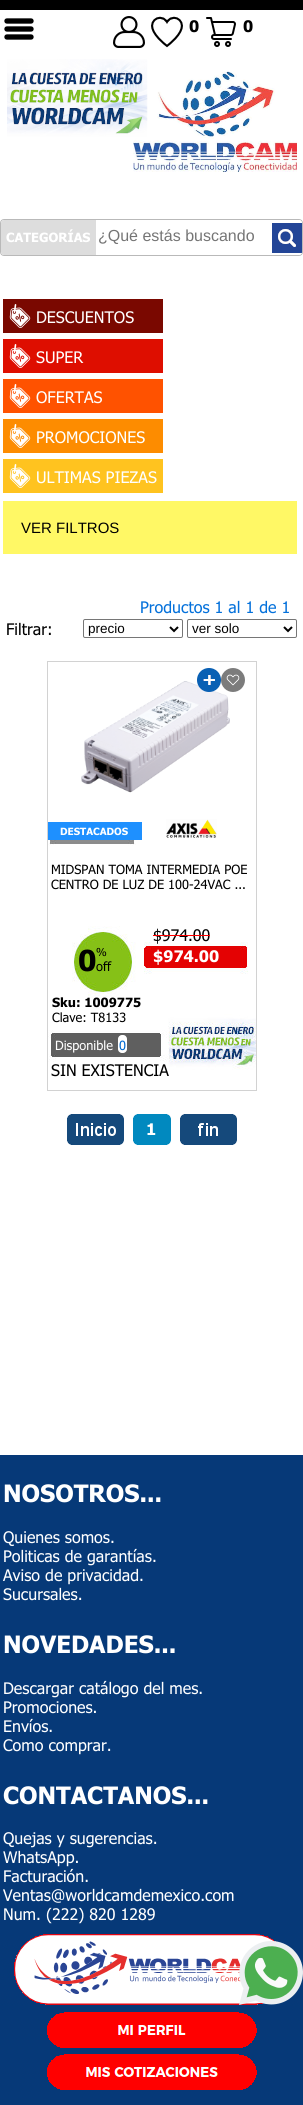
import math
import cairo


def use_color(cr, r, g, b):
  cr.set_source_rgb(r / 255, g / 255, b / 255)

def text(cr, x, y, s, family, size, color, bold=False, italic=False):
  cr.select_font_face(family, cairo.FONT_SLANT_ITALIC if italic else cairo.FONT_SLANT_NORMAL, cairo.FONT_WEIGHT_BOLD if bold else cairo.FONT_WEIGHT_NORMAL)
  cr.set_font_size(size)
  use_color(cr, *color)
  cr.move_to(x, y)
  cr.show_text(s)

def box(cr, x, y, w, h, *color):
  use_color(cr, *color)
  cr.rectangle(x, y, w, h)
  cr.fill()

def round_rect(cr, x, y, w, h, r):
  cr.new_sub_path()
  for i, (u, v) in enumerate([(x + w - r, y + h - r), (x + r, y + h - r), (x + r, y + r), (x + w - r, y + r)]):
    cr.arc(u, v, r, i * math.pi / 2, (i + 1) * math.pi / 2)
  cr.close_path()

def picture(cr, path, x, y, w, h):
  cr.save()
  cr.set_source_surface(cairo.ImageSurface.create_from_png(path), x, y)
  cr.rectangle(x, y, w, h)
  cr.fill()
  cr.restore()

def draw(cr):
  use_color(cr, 255, 255, 255)
  cr.paint()
  box(cr, 0, 0, 303, 10, 0, 0, 0)
  picture(cr, "img_01.png", 4, 18, 30, 22)
  picture(cr, "img_02.png", 113, 16, 32, 32)
  picture(cr, "img_03.png", 151, 16, 32, 32)
  picture(cr, "img_04.png", 206, 17, 30, 30)
  picture(cr, "img_05.png", 7, 59, 290, 113)
  round_rect(cr, 0.5, 219.5, 302, 36, 3.5)
  use_color(cr, 185, 185, 185)
  cr.set_line_width(1)
  cr.stroke()
  use_color(cr, 221, 221, 221)
  cr.new_path()
  cr.move_to(4, 220)
  cr.line_to(96, 220)
  cr.line_to(96, 255)
  cr.line_to(4, 255)
  cr.curve_to(2.5, 255, 1, 253.5, 1, 252)
  cr.line_to(1, 223)
  cr.curve_to(1, 221.5, 2.5, 220, 4, 220)
  cr.close_path()
  cr.fill()
  use_color(cr, 255, 255, 255)
  cr.new_path()
  cr.move_to(272, 220)
  cr.line_to(299, 220)
  cr.curve_to(300.5, 220, 302, 221.5, 302, 223)
  cr.line_to(302, 252)
  cr.curve_to(302, 253.5, 300.5, 255, 299, 255)
  cr.line_to(272, 255)
  cr.close_path()
  cr.fill()
  picture(cr, "img_06.png", 272, 223, 30, 30)
  box(cr, 3, 299, 160, 34, 122, 8, 0)
  picture(cr, "img_07.png", 9, 304, 22, 24)
  box(cr, 3, 339, 160, 34, 222, 14, 0)
  picture(cr, "img_08.png", 9, 344, 22, 24)
  box(cr, 3, 379, 160, 34, 255, 82, 0)
  picture(cr, "img_09.png", 9, 384, 22, 24)
  box(cr, 3, 419, 160, 34, 253, 140, 0)
  picture(cr, "img_10.png", 9, 424, 22, 24)
  box(cr, 3, 459, 160, 34, 255, 195, 31)
  picture(cr, "img_11.png", 9, 464, 22, 24)
  box(cr, 3, 501, 294, 53, 255, 248, 101)
  round_rect(cr, 83.5, 619.5, 99, 18, 1.5)
  use_color(cr, 118, 118, 118)
  cr.stroke()
  cr.new_path()
  cr.move_to(170, 627)
  cr.line_to(174, 631)
  cr.line_to(178, 627)
  use_color(cr, 0, 0, 0)
  cr.set_line_width(2)
  cr.stroke()
  round_rect(cr, 187.5, 619.5, 109, 18, 1.5)
  use_color(cr, 118, 118, 118)
  cr.set_line_width(1)
  cr.stroke()
  cr.new_path()
  cr.move_to(284, 627)
  cr.line_to(288, 631)
  cr.line_to(292, 627)
  use_color(cr, 0, 0, 0)
  cr.set_line_width(2)
  cr.stroke()
  cr.rectangle(47.5, 661.5, 209, 429)
  use_color(cr, 210, 210, 210)
  cr.set_line_width(1)
  cr.stroke()
  picture(cr, "img_14.png", 81, 681, 149, 112)
  picture(cr, "img_12.png", 197, 668, 24, 24)
  picture(cr, "img_13.png", 221, 668, 24, 24)
  picture(cr, "img_16.png", 48, 822, 208, 248)
  picture(cr, "img_15.png", 166, 819, 51, 19)
  box(cr, 48, 822, 94, 18, 30, 144, 255)
  use_color(cr, 255, 255, 255)
  round_rect(cr, 118, 1035, 9, 18, 4)
  cr.fill()
  picture(cr, "img_17.png", 67, 1114, 57, 31)
  picture(cr, "img_18.png", 133, 1114, 38, 31)
  picture(cr, "img_19.png", 180, 1114, 57, 31)
  box(cr, 0, 1455, 303, 650, 6, 57, 120)
  picture(cr, "img_20.png", 14, 1934, 262, 71)
  picture(cr, "img_21.png", 47, 2012, 210, 36)
  picture(cr, "img_22.png", 47, 2054, 210, 36)
  picture(cr, "img_23.png", 239, 1941, 64, 64)
  text(cr, 189, 32, "0", "Tahoma", 16, (0, 0, 0), bold=True)
  text(cr, 243, 32, "0", "Tahoma", 16, (0, 0, 0), bold=True)
  text(cr, 6, 242, "CATEGORÍAS", "Tahoma", 12.75, (255, 255, 255), bold=True)
  text(cr, 98, 241, "¿Qué estás buscando", "Liberation Sans", 16, (117, 117, 117))
  text(cr, 36, 323, "DESCUENTOS", "Tahoma", 16, (255, 255, 255))
  text(cr, 36, 363, "SUPER", "Tahoma", 16, (255, 255, 255))
  text(cr, 36, 403, "OFERTAS", "Tahoma", 16, (255, 255, 255))
  text(cr, 36, 443, "PROMOCIONES", "Tahoma", 16, (255, 255, 255))
  text(cr, 36, 483, "ULTIMAS PIEZAS", "Tahoma", 16, (255, 255, 255))
  text(cr, 21, 533, "VER FILTROS", "Liberation Sans", 15, (0, 0, 0))
  text(cr, 140, 613, "Productos 1 al 1 de 1", "Tahoma", 16, (4, 113, 219))
  text(cr, 6, 635, "Filtrar:", "Tahoma", 16, (0, 0, 0))
  text(cr, 88, 633, "precio", "Liberation Sans", 13.5, (0, 0, 0))
  text(cr, 192, 633, "ver solo", "Liberation Sans", 13.5, (0, 0, 0))
  text(cr, 60, 835, "DESTACADOS", "Tahoma", 10, (255, 255, 255), bold=True)
  text(cr, 51, 874, "MIDSPAN TOMA INTERMEDIA POE", "Tahoma", 12.75, (0, 0, 0))
  text(cr, 51, 889, "CENTRO DE LUZ DE 100-24VAC ...", "Tahoma", 12.75, (0, 0, 0))
  text(cr, 153, 941, "$974.00", "Tahoma", 16, (0, 0, 0))
  box(cr, 153, 935, 57, 1, 255, 0, 0)
  text(cr, 78, 971, "0", "Tahoma", 29, (0, 0, 0), bold=True)
  text(cr, 96, 956, "%", "Tahoma", 11, (0, 0, 0))
  text(cr, 96, 971, "off", "Tahoma", 12.75, (0, 0, 0))
  text(cr, 153, 962, "$974.00", "Tahoma", 16, (255, 255, 255), bold=True)
  text(cr, 52, 1007, "Sku: 1009775", "Tahoma", 12.75, (0, 0, 0), bold=True)
  text(cr, 52, 1022, "Clave: T8133", "Tahoma", 12.75, (0, 0, 0))
  text(cr, 55, 1050, "Disponible", "Tahoma", 12.75, (255, 255, 255))
  text(cr, 119, 1050, "0", "Tahoma", 12.75, (0, 106, 210))
  text(cr, 51, 1076, "SIN EXISTENCIA", "Tahoma", 16, (0, 0, 0))
  text(cr, 146, 1135, "1", "Tahoma", 16, (255, 255, 255), bold=True)
  text(cr, 3, 1502, "NOSOTROS...", "Tahoma", 24, (255, 255, 255), bold=True)
  text(cr, 3, 1543, "Quienes somos.", "Tahoma", 16, (255, 255, 255))
  text(cr, 3, 1562, "Politicas de garantías.", "Tahoma", 16, (255, 255, 255))
  text(cr, 3, 1581, "Aviso de privacidad.", "Tahoma", 16, (255, 255, 255))
  text(cr, 3, 1600, "Sucursales.", "Tahoma", 16, (255, 255, 255))
  text(cr, 3, 1653, "NOVEDADES...", "Tahoma", 24, (255, 255, 255), bold=True)
  text(cr, 3, 1694, "Descargar catálogo del mes.", "Tahoma", 16, (255, 255, 255))
  text(cr, 3, 1713, "Promociones.", "Tahoma", 16, (255, 255, 255))
  text(cr, 3, 1732, "Envíos.", "Tahoma", 16, (255, 255, 255))
  text(cr, 3, 1751, "Como comprar.", "Tahoma", 16, (255, 255, 255))
  text(cr, 3, 1804, "CONTACTANOS...", "Tahoma", 24, (255, 255, 255), bold=True)
  text(cr, 3, 1844, "Quejas y sugerencias.", "Tahoma", 16, (255, 255, 255))
  text(cr, 3, 1863, "WhatsApp.", "Tahoma", 16, (255, 255, 255))
  text(cr, 3, 1882, "Facturación.", "Tahoma", 16, (255, 255, 255))
  text(cr, 3, 1901, "Ventas@worldcamdemexico.com", "Tahoma", 16, (255, 255, 255))
  text(cr, 3, 1920, "Num. (222) 820 1289", "Tahoma", 16, (255, 255, 255))


surface = cairo.ImageSurface(cairo.FORMAT_RGB24, 303, 2105)
cr = cairo.Context(surface)
options = cairo.FontOptions()
options.set_hint_metrics(cairo.HINT_METRICS_OFF)
options.set_hint_style(cairo.HINT_STYLE_NONE)
cr.set_font_options(options)
cr.set_miter_limit(4)
draw(cr)
surface.write_to_png("out.png")
